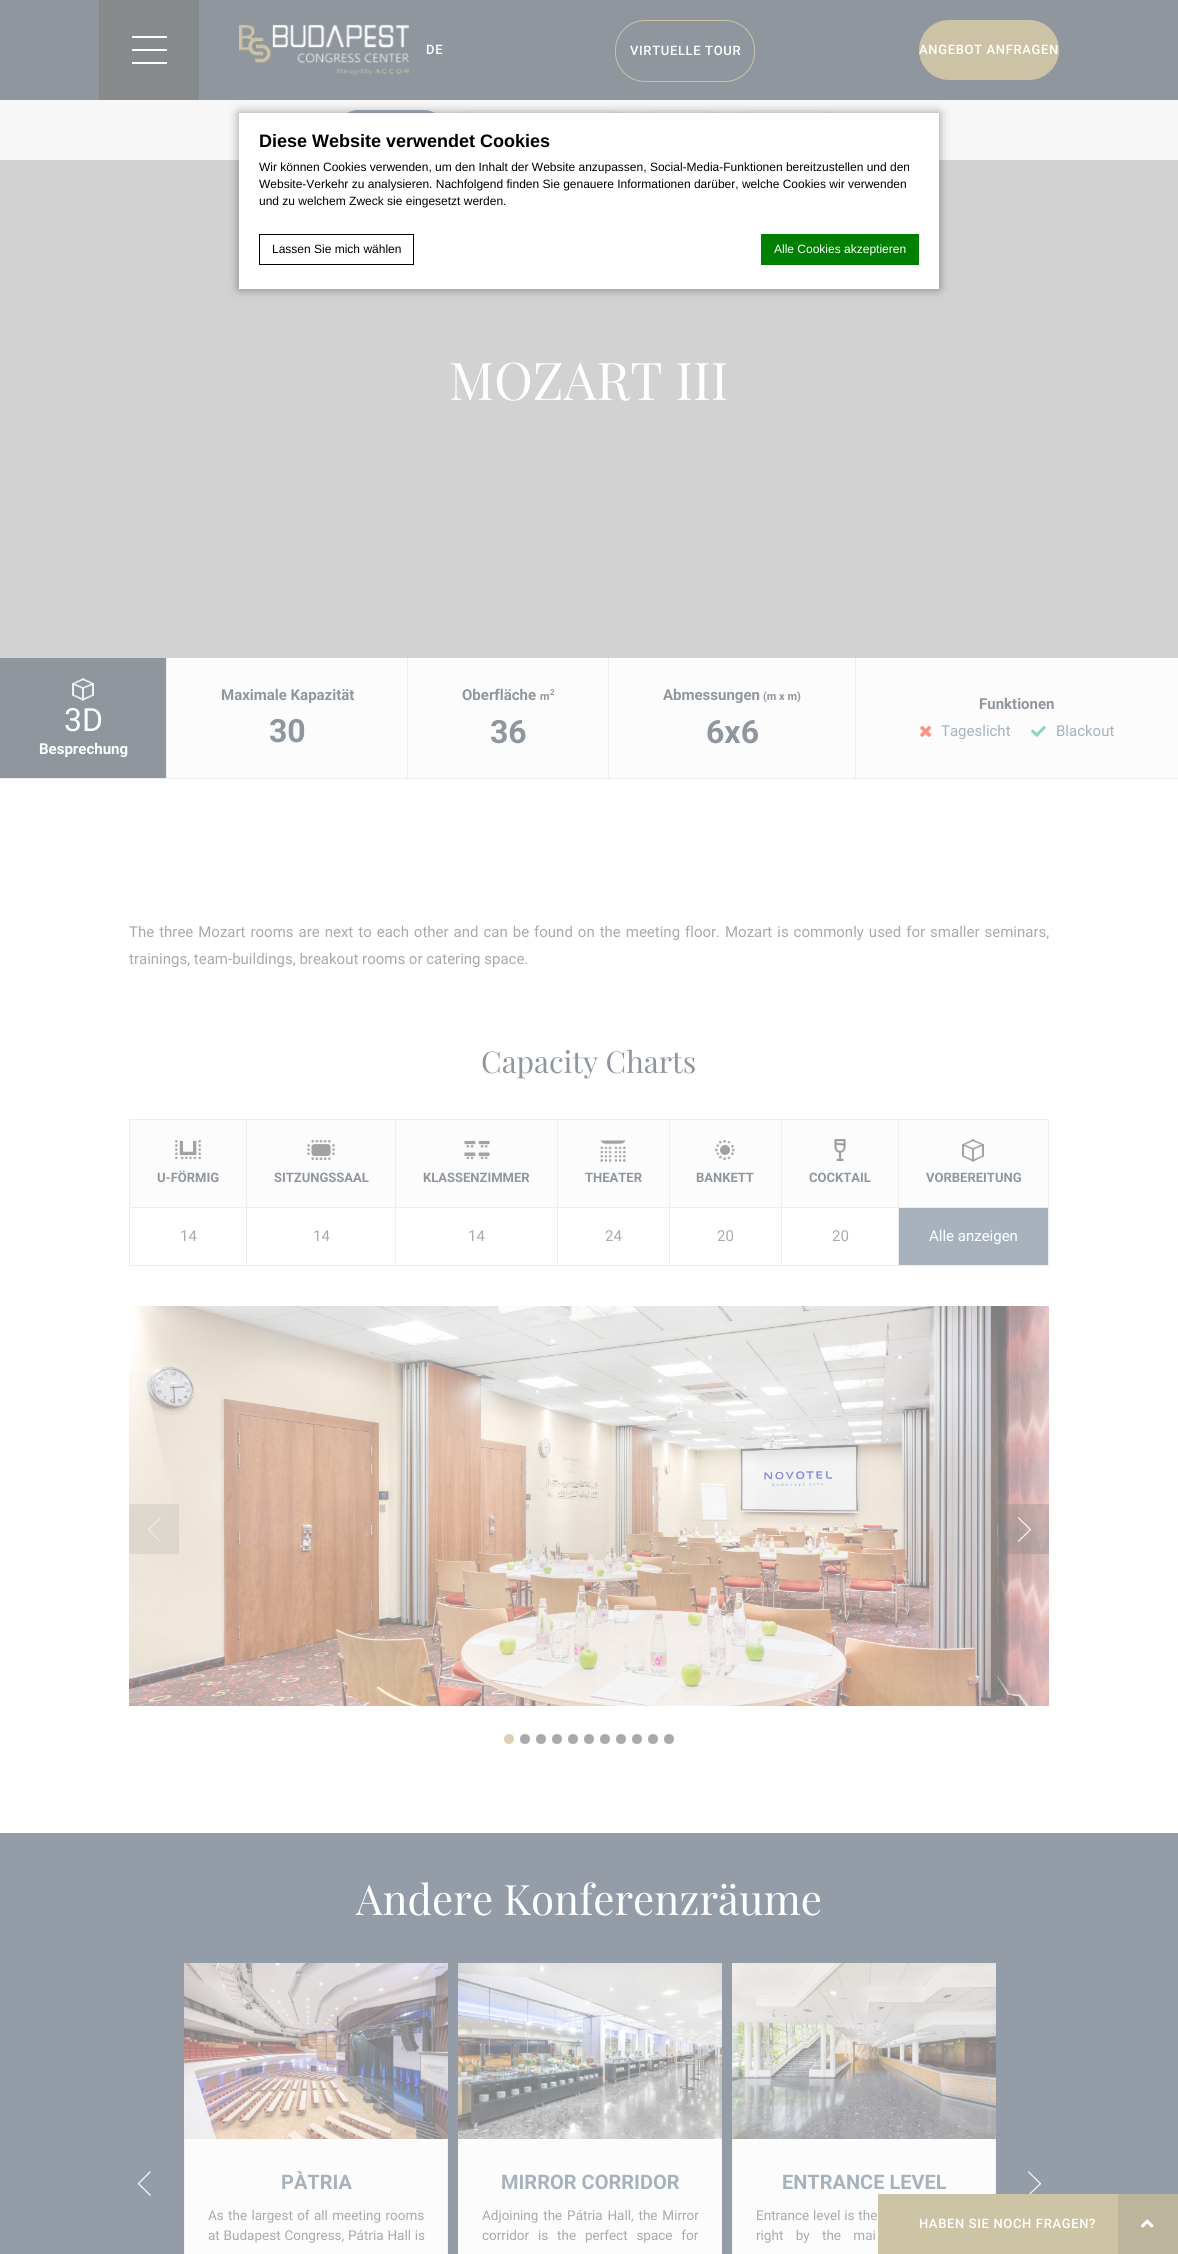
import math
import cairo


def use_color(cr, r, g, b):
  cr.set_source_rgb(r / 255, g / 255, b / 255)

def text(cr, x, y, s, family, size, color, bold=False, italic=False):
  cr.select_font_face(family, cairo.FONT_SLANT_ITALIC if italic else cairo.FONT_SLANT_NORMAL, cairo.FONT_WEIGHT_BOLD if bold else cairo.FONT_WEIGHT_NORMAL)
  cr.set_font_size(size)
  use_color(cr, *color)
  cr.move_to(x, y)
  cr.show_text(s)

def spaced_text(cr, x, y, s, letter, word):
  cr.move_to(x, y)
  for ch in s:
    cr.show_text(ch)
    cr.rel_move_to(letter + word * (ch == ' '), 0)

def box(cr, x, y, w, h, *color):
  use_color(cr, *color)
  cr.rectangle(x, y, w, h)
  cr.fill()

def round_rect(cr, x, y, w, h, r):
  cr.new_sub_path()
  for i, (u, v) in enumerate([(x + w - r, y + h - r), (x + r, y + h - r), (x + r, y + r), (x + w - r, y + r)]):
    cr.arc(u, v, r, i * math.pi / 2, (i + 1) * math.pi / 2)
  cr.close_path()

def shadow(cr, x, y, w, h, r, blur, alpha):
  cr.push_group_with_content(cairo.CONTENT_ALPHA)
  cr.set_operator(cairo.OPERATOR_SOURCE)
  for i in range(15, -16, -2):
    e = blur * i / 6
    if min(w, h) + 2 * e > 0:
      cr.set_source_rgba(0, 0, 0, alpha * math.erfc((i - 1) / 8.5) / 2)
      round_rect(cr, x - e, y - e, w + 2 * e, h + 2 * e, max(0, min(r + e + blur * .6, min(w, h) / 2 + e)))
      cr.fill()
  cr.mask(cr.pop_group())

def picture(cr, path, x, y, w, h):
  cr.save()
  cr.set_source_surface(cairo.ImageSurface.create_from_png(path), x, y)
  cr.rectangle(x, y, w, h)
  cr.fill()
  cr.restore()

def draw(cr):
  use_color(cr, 255, 255, 255)
  cr.paint()
  box(cr, 0, 0, 1178, 100, 143, 150, 158)
  box(cr, 99, 0, 100, 100, 135, 138, 141)
  box(cr, 132, 36, 35, 2, 255, 255, 255)
  box(cr, 132, 49, 35, 2, 255, 255, 255)
  box(cr, 132, 62, 35, 2, 255, 255, 255)
  picture(cr, "img_01.png", 239, 24, 170, 52)
  round_rect(cr, 615.5, 20.5, 139, 61, 29.5)
  use_color(cr, 204, 194, 166)
  cr.set_line_width(1)
  cr.stroke()
  round_rect(cr, 919, 20, 140, 60, 30)
  cr.fill()
  box(cr, 0, 160, 1178, 498, 210, 210, 210)
  box(cr, 0, 100, 1178, 60, 247, 247, 247)
  use_color(cr, 168, 178, 189)
  round_rect(cr, 337.5, 110.5, 107, 41, 20.5)
  cr.fill_preserve()
  cr.stroke()
  round_rect(cr, 451.5, 110.5, 178, 41, 20.5)
  use_color(cr, 238, 238, 238)
  cr.stroke()
  round_rect(cr, 636.5, 110.5, 89, 41, 20.5)
  cr.stroke()
  round_rect(cr, 732.5, 110.5, 108, 41, 20.5)
  cr.stroke()
  use_color(cr, 0, 0, 0)
  shadow(cr, 239, 113, 700, 176, 0, 5, 0.4)
  box(cr, 239, 113, 700, 176, 255, 255, 255)
  cr.rectangle(259.5, 234.5, 154, 30)
  use_color(cr, 0, 0, 0)
  cr.stroke()
  box(cr, 761, 234, 158, 31, 0, 128, 0)
  box(cr, 167, 658, 1011, 120, 252, 252, 252)
  box(cr, 0, 778, 1178, 1, 238, 238, 238)
  box(cr, 0, 658, 166, 120, 143, 150, 158)
  picture(cr, "img_02.png", 72, 678, 22, 23)
  box(cr, 166, 658, 1, 120, 238, 238, 238)
  box(cr, 407, 658, 1, 120, 238, 238, 238)
  box(cr, 608, 658, 1, 120, 238, 238, 238)
  box(cr, 855, 658, 1, 120, 238, 238, 238)
  picture(cr, "img_03.png", 920, 725, 12, 12)
  picture(cr, "img_04.png", 1031, 725, 15, 12)
  box(cr, 129, 1119, 920, 1, 238, 238, 238)
  box(cr, 129, 1265, 920, 1, 238, 238, 238)
  box(cr, 129, 1119, 1, 147, 238, 238, 238)
  box(cr, 246, 1120, 1, 145, 238, 238, 238)
  box(cr, 130, 1120, 116, 87, 252, 252, 252)
  box(cr, 130, 1207, 116, 1, 238, 238, 238)
  picture(cr, "img_05.png", 174, 1140, 28, 20)
  box(cr, 395, 1120, 1, 145, 238, 238, 238)
  box(cr, 247, 1120, 148, 87, 252, 252, 252)
  box(cr, 247, 1207, 148, 1, 238, 238, 238)
  picture(cr, "img_06.png", 306, 1140, 30, 20)
  box(cr, 557, 1120, 1, 145, 238, 238, 238)
  box(cr, 396, 1120, 161, 87, 252, 252, 252)
  box(cr, 396, 1207, 161, 1, 238, 238, 238)
  picture(cr, "img_07.png", 464, 1140, 26, 20)
  box(cr, 669, 1120, 1, 145, 238, 238, 238)
  box(cr, 558, 1120, 111, 87, 252, 252, 252)
  box(cr, 558, 1207, 111, 1, 238, 238, 238)
  picture(cr, "img_08.png", 600, 1140, 26, 22)
  box(cr, 781, 1120, 1, 145, 238, 238, 238)
  box(cr, 670, 1120, 111, 87, 252, 252, 252)
  box(cr, 670, 1207, 111, 1, 238, 238, 238)
  picture(cr, "img_09.png", 715, 1140, 20, 20)
  box(cr, 898, 1120, 1, 145, 238, 238, 238)
  box(cr, 782, 1120, 116, 87, 252, 252, 252)
  box(cr, 782, 1207, 116, 1, 238, 238, 238)
  picture(cr, "img_10.png", 834, 1139, 12, 22)
  box(cr, 1048, 1120, 1, 145, 238, 238, 238)
  box(cr, 899, 1120, 149, 87, 252, 252, 252)
  box(cr, 899, 1207, 149, 1, 238, 238, 238)
  picture(cr, "img_11.png", 962, 1139, 22, 23)
  box(cr, 899, 1208, 149, 57, 168, 178, 189)
  picture(cr, "img_12.png", 129, 1306, 920, 400)
  cr.set_source_rgba(0.502, 0.502, 0.502, 0.15)
  cr.rectangle(129, 1504, 50, 50)
  cr.fill()
  picture(cr, "img_13.png", 148, 1517, 13, 25)
  cr.set_source_rgba(0.502, 0.502, 0.502, 0.3)
  cr.rectangle(1001, 1504, 48, 50)
  cr.fill()
  picture(cr, "img_14.png", 1018, 1517, 13, 25)
  use_color(cr, 218, 209, 177)
  cr.arc(509, 1739, 5, 0, 2 * math.pi)
  cr.fill()
  use_color(cr, 170, 170, 170)
  cr.arc(525, 1739, 5, 0, 2 * math.pi)
  cr.fill()
  cr.arc(541, 1739, 5, 0, 2 * math.pi)
  cr.fill()
  cr.arc(557, 1739, 5, 0, 2 * math.pi)
  cr.fill()
  cr.arc(573, 1739, 5, 0, 2 * math.pi)
  cr.fill()
  cr.arc(589, 1739, 5, 0, 2 * math.pi)
  cr.fill()
  cr.arc(605, 1739, 5, 0, 2 * math.pi)
  cr.fill()
  cr.arc(621, 1739, 5, 0, 2 * math.pi)
  cr.fill()
  cr.arc(637, 1739, 5, 0, 2 * math.pi)
  cr.fill()
  cr.arc(653, 1739, 5, 0, 2 * math.pi)
  cr.fill()
  cr.arc(669, 1739, 5, 0, 2 * math.pi)
  cr.fill()
  box(cr, 0, 1833, 1178, 421, 148, 156, 167)
  picture(cr, "img_15.png", 138, 2171, 13, 25)
  picture(cr, "img_16.png", 184, 1963, 264, 176)
  box(cr, 185, 2139, 262, 115, 252, 252, 252)
  box(cr, 447, 2139, 1, 115, 245, 245, 245)
  box(cr, 184, 2139, 1, 115, 245, 245, 245)
  picture(cr, "img_17.png", 458, 1963, 264, 176)
  box(cr, 459, 2139, 262, 115, 252, 252, 252)
  box(cr, 721, 2139, 1, 115, 245, 245, 245)
  box(cr, 458, 2139, 1, 115, 245, 245, 245)
  picture(cr, "img_18.png", 732, 1963, 264, 176)
  box(cr, 733, 2139, 262, 115, 252, 252, 252)
  box(cr, 995, 2139, 1, 55, 245, 245, 245)
  box(cr, 732, 2139, 1, 115, 245, 245, 245)
  picture(cr, "img_19.png", 1028, 2171, 13, 23)
  box(cr, 878, 2194, 240, 60, 205, 196, 165)
  box(cr, 1118, 2194, 60, 60, 188, 181, 156)
  picture(cr, "img_20.png", 1141, 2219, 13, 9)
  cr.select_font_face("Roboto Medium")
  cr.set_font_size(13)
  use_color(cr, 255, 255, 255)
  spaced_text(cr, 426, 54, "DE", 0.65, 0)
  spaced_text(cr, 630, 55, "VIRTUELLE TOUR", 0.65, 0)
  spaced_text(cr, 919, 54, "ANGEBOT ANFRAGEN", 0.65, 0)
  text(cr, 259, 147, "Diese Website verwendet Cookies", "Liberation Sans", 18, (0, 0, 0), bold=True)
  text(cr, 259, 171, "Wir können Cookies verwenden, um den Inhalt der Website anzupassen, Social-Media-Funktionen bereitzustellen und den", "Liberation Sans", 12, (0, 0, 0))
  text(cr, 259, 188, "Website-Verkehr zu analysieren. Nachfolgend finden Sie genauere Informationen darüber, welche Cookies wir verwenden", "Liberation Sans", 12, (0, 0, 0))
  text(cr, 259, 205, "und zu welchem Zweck sie eingesetzt werden.", "Liberation Sans", 12, (0, 0, 0))
  text(cr, 272, 253, "Lassen Sie mich wählen", "Liberation Sans", 12, (0, 0, 0))
  text(cr, 774, 253, "Alle Cookies akzeptieren", "Liberation Sans", 12, (255, 255, 255))
  text(cr, 449, 400, "MOZART III", "Playfair Display", 52, (255, 255, 255))
  text(cr, 64, 731, "3D", "Roboto", 32, (255, 255, 255))
  text(cr, 39, 754, "Besprechung", "Roboto", 15, (255, 255, 255), bold=True)
  text(cr, 221, 700, "Maximale Kapazität", "Roboto", 15, (143, 150, 158), bold=True)
  text(cr, 269, 742, "30", "Roboto", 32, (143, 150, 158), bold=True)
  text(cr, 462, 700, "Oberfläche", "Roboto", 15, (143, 150, 158), bold=True)
  text(cr, 550, 695, "2", "Roboto", 8, (143, 150, 158), bold=True)
  text(cr, 540, 700, "m", "Roboto", 11, (143, 150, 158), bold=True)
  text(cr, 490, 743, "36", "Roboto", 32, (143, 150, 158), bold=True)
  text(cr, 663, 700, "Abmessungen", "Roboto", 15, (143, 150, 158), bold=True)
  text(cr, 763, 700, "(m x m)", "Roboto", 11, (143, 150, 158), bold=True)
  text(cr, 706, 743, "6x6", "Roboto", 32, (143, 150, 158), bold=True)
  text(cr, 979, 709, "Funktionen", "Roboto", 15, (143, 150, 158), bold=True)
  text(cr, 941, 736, "Tageslicht", "Roboto", 15, (168, 178, 189))
  text(cr, 1056, 736, "Blackout", "Roboto", 15, (168, 178, 189))
  use_color(cr, 170, 170, 170)
  spaced_text(cr, 129, 937, "The three Mozart rooms are next to each other and can be found on the meeting floor. Mozart is commonly used for smaller seminars,", 0, 1.25)
  text(cr, 129, 964, "trainings, team-buildings, breakout rooms or catering space.", "Roboto", 15, (170, 170, 170))
  text(cr, 481, 1073, "Capacity Charts", "Playfair Display", 30, (143, 150, 158))
  text(cr, 157, 1182, "U-FÖRMIG", "Roboto", 13, (143, 150, 158), bold=True)
  text(cr, 180, 1241, "14", "Roboto", 15, (170, 170, 170))
  text(cr, 274, 1182, "SITZUNGSSAAL", "Roboto", 13, (143, 150, 158), bold=True)
  text(cr, 313, 1241, "14", "Roboto", 15, (170, 170, 170))
  text(cr, 423, 1182, "KLASSENZIMMER", "Roboto", 13, (143, 150, 158), bold=True)
  text(cr, 468, 1241, "14", "Roboto", 15, (170, 170, 170))
  text(cr, 585, 1182, "THEATER", "Roboto", 13, (143, 150, 158), bold=True)
  text(cr, 605, 1241, "24", "Roboto", 15, (170, 170, 170))
  text(cr, 696, 1182, "BANKETT", "Roboto", 13, (143, 150, 158), bold=True)
  text(cr, 717, 1241, "20", "Roboto", 15, (170, 170, 170))
  text(cr, 809, 1182, "COCKTAIL", "Roboto", 13, (143, 150, 158), bold=True)
  text(cr, 832, 1241, "20", "Roboto", 15, (170, 170, 170))
  text(cr, 926, 1182, "VORBEREITUNG", "Roboto", 13, (143, 150, 158), bold=True)
  text(cr, 929, 1241, "Alle anzeigen", "Roboto", 15, (255, 255, 255))
  text(cr, 356, 1915, "Andere Konferenzräume", "Playfair Display", 42, (255, 255, 255))
  text(cr, 281, 2189, "PÀTRIA", "Roboto", 20, (168, 178, 189), bold=True)
  cr.select_font_face("Roboto")
  cr.set_font_size(13.5)
  use_color(cr, 170, 170, 170)
  spaced_text(cr, 208, 2220, "As the largest of all meeting rooms", 0, 1)
  spaced_text(cr, 208, 2240, "at Budapest Congress, Pátria Hall is", 0, 0.5)
  text(cr, 501, 2189, "MIRROR CORRIDOR", "Roboto", 20, (168, 178, 189), bold=True)
  cr.select_font_face("Roboto")
  cr.set_font_size(13.5)
  use_color(cr, 170, 170, 170)
  spaced_text(cr, 482, 2220, "Adjoining the Pátria Hall, the Mirror", 0, 1.5)
  spaced_text(cr, 482, 2240, "corridor is the perfect space for", 0, 5.5)
  text(cr, 782, 2189, "ENTRANCE LEVEL", "Roboto", 20, (168, 178, 189), bold=True)
  cr.select_font_face("Roboto")
  cr.set_font_size(13.5)
  use_color(cr, 170, 170, 170)
  spaced_text(cr, 756, 2220, "Entrance level is the", 0, 0.5)
  spaced_text(cr, 756, 2240, "right by the mai", 0, 9)
  cr.select_font_face("Roboto Medium")
  cr.set_font_size(13)
  use_color(cr, 255, 255, 255)
  spaced_text(cr, 919, 2228, "HABEN SIE NOCH FRAGEN?", 0.65, 0)


surface = cairo.ImageSurface(cairo.FORMAT_RGB24, 1178, 2254)
cr = cairo.Context(surface)
options = cairo.FontOptions()
options.set_hint_metrics(cairo.HINT_METRICS_OFF)
options.set_hint_style(cairo.HINT_STYLE_NONE)
cr.set_font_options(options)
cr.set_miter_limit(4)
draw(cr)
surface.write_to_png("out.png")
